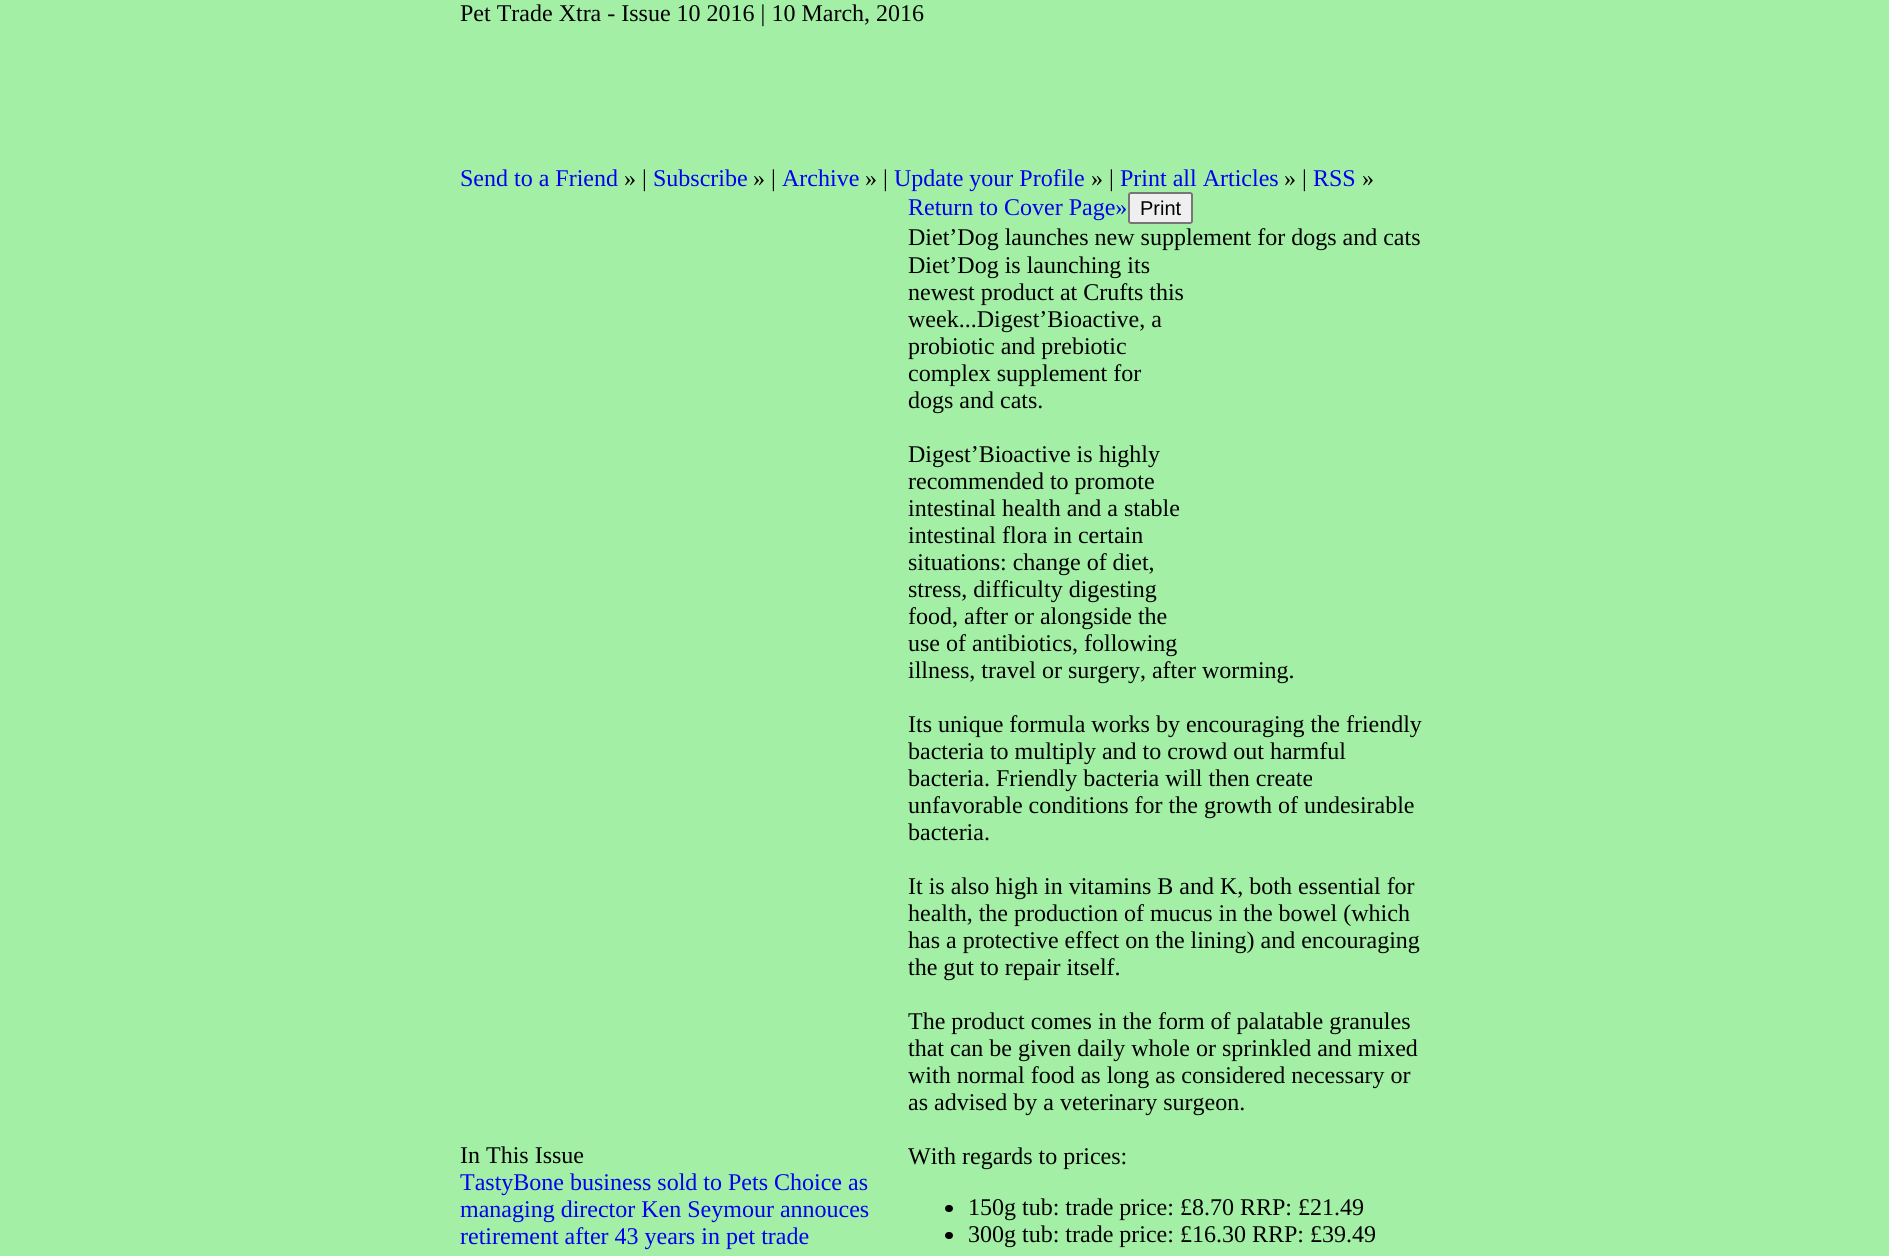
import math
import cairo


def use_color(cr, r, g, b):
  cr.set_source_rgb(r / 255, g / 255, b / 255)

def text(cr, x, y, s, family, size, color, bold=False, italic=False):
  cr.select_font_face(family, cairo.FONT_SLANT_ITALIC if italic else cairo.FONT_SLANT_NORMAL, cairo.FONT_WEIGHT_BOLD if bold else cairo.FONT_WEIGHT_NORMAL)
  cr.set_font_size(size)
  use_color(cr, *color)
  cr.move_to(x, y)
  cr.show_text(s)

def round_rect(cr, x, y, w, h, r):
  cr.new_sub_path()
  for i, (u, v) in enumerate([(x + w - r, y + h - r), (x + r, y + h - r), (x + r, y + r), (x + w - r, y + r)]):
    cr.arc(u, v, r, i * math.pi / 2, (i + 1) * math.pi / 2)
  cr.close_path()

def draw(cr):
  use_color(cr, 163, 239, 165)
  cr.paint()
  use_color(cr, 239, 239, 239)
  round_rect(cr, 1129, 193, 63, 30, 2)
  cr.fill_preserve()
  use_color(cr, 118, 118, 118)
  cr.stroke()
  use_color(cr, 0, 0, 0)
  round_rect(cr, 945, 1205, 8, 7, 3.5)
  cr.fill()
  round_rect(cr, 945, 1232, 8, 7, 3.5)
  cr.fill()
  text(cr, 460, 21, "Pet Trade Xtra - Issue 10 2016 | 10 March, 2016", "Liberation Serif", 24, (0, 0, 0))
  text(cr, 460, 186, "Send to a Friend", "Liberation Serif", 24, (0, 0, 238))
  text(cr, 624, 186, "» |", "Liberation Serif", 24, (0, 0, 0))
  text(cr, 653, 186, "Subscribe", "Liberation Serif", 24, (0, 0, 238))
  text(cr, 753, 186, "» |", "Liberation Serif", 24, (0, 0, 0))
  text(cr, 782, 186, "Archive", "Liberation Serif", 24, (0, 0, 238))
  text(cr, 865, 186, "» |", "Liberation Serif", 24, (0, 0, 0))
  text(cr, 894, 186, "Update your Profile", "Liberation Serif", 24, (0, 0, 238))
  text(cr, 1091, 186, "» |", "Liberation Serif", 24, (0, 0, 0))
  text(cr, 1120, 186, "Print all Articles", "Liberation Serif", 24, (0, 0, 238))
  text(cr, 1284, 186, "» |", "Liberation Serif", 24, (0, 0, 0))
  text(cr, 1313, 186, "RSS", "Liberation Serif", 24, (0, 0, 238))
  text(cr, 1362, 186, "»", "Liberation Serif", 24, (0, 0, 0))
  text(cr, 460, 1163, "In This Issue", "Liberation Serif", 24, (0, 0, 0))
  text(cr, 460, 1190, "TastyBone business sold to Pets Choice as", "Liberation Serif", 24, (0, 0, 238))
  text(cr, 460, 1217, "managing director Ken Seymour annouces", "Liberation Serif", 24, (0, 0, 238))
  text(cr, 460, 1244, "retirement after 43 years in pet trade", "Liberation Serif", 24, (0, 0, 238))
  text(cr, 908, 215, "Return to Cover Page»", "Liberation Serif", 24, (0, 0, 238))
  text(cr, 1140, 215, "Print", "Liberation Sans", 20, (0, 0, 0))
  text(cr, 908, 245, "Diet’Dog launches new supplement for dogs and cats", "Liberation Serif", 24, (0, 0, 0))
  text(cr, 908, 273, "Diet’Dog is launching its", "Liberation Serif", 24, (0, 0, 0))
  text(cr, 908, 300, "newest product at Crufts this", "Liberation Serif", 24, (0, 0, 0))
  text(cr, 908, 327, "week...Digest’Bioactive, a", "Liberation Serif", 24, (0, 0, 0))
  text(cr, 908, 354, "probiotic and prebiotic", "Liberation Serif", 24, (0, 0, 0))
  text(cr, 908, 381, "complex supplement for", "Liberation Serif", 24, (0, 0, 0))
  text(cr, 908, 408, "dogs and cats.", "Liberation Serif", 24, (0, 0, 0))
  text(cr, 908, 462, "Digest’Bioactive is highly", "Liberation Serif", 24, (0, 0, 0))
  text(cr, 908, 489, "recommended to promote", "Liberation Serif", 24, (0, 0, 0))
  text(cr, 908, 516, "intestinal health and a stable", "Liberation Serif", 24, (0, 0, 0))
  text(cr, 908, 543, "intestinal flora in certain", "Liberation Serif", 24, (0, 0, 0))
  text(cr, 908, 570, "situations: change of diet,", "Liberation Serif", 24, (0, 0, 0))
  text(cr, 908, 597, "stress, difficulty digesting", "Liberation Serif", 24, (0, 0, 0))
  text(cr, 908, 624, "food, after or alongside the", "Liberation Serif", 24, (0, 0, 0))
  text(cr, 908, 651, "use of antibiotics, following", "Liberation Serif", 24, (0, 0, 0))
  text(cr, 908, 678, "illness, travel or surgery, after worming.", "Liberation Serif", 24, (0, 0, 0))
  text(cr, 908, 732, "Its unique formula works by encouraging the friendly", "Liberation Serif", 24, (0, 0, 0))
  text(cr, 908, 759, "bacteria to multiply and to crowd out harmful", "Liberation Serif", 24, (0, 0, 0))
  text(cr, 908, 786, "bacteria. Friendly bacteria will then create", "Liberation Serif", 24, (0, 0, 0))
  text(cr, 908, 813, "unfavorable conditions for the growth of undesirable", "Liberation Serif", 24, (0, 0, 0))
  text(cr, 908, 840, "bacteria.", "Liberation Serif", 24, (0, 0, 0))
  text(cr, 908, 894, "It is also high in vitamins B and K, both essential for", "Liberation Serif", 24, (0, 0, 0))
  text(cr, 908, 921, "health, the production of mucus in the bowel (which", "Liberation Serif", 24, (0, 0, 0))
  text(cr, 908, 948, "has a protective effect on the lining) and encouraging", "Liberation Serif", 24, (0, 0, 0))
  text(cr, 908, 975, "the gut to repair itself.", "Liberation Serif", 24, (0, 0, 0))
  text(cr, 908, 1029, "The product comes in the form of palatable granules", "Liberation Serif", 24, (0, 0, 0))
  text(cr, 908, 1056, "that can be given daily whole or sprinkled and mixed", "Liberation Serif", 24, (0, 0, 0))
  text(cr, 908, 1083, "with normal food as long as considered necessary or", "Liberation Serif", 24, (0, 0, 0))
  text(cr, 908, 1110, "as advised by a veterinary surgeon.", "Liberation Serif", 24, (0, 0, 0))
  text(cr, 908, 1164, "With regards to prices:", "Liberation Serif", 24, (0, 0, 0))
  text(cr, 968, 1215, "150g tub: trade price: £8.70 RRP: £21.49", "Liberation Serif", 24, (0, 0, 0))
  text(cr, 968, 1242, "300g tub: trade price: £16.30 RRP: £39.49", "Liberation Serif", 24, (0, 0, 0))


surface = cairo.ImageSurface(cairo.FORMAT_RGB24, 1889, 1256)
cr = cairo.Context(surface)
options = cairo.FontOptions()
options.set_hint_metrics(cairo.HINT_METRICS_OFF)
options.set_hint_style(cairo.HINT_STYLE_NONE)
cr.set_font_options(options)
cr.set_miter_limit(4)
draw(cr)
surface.write_to_png("out.png")
